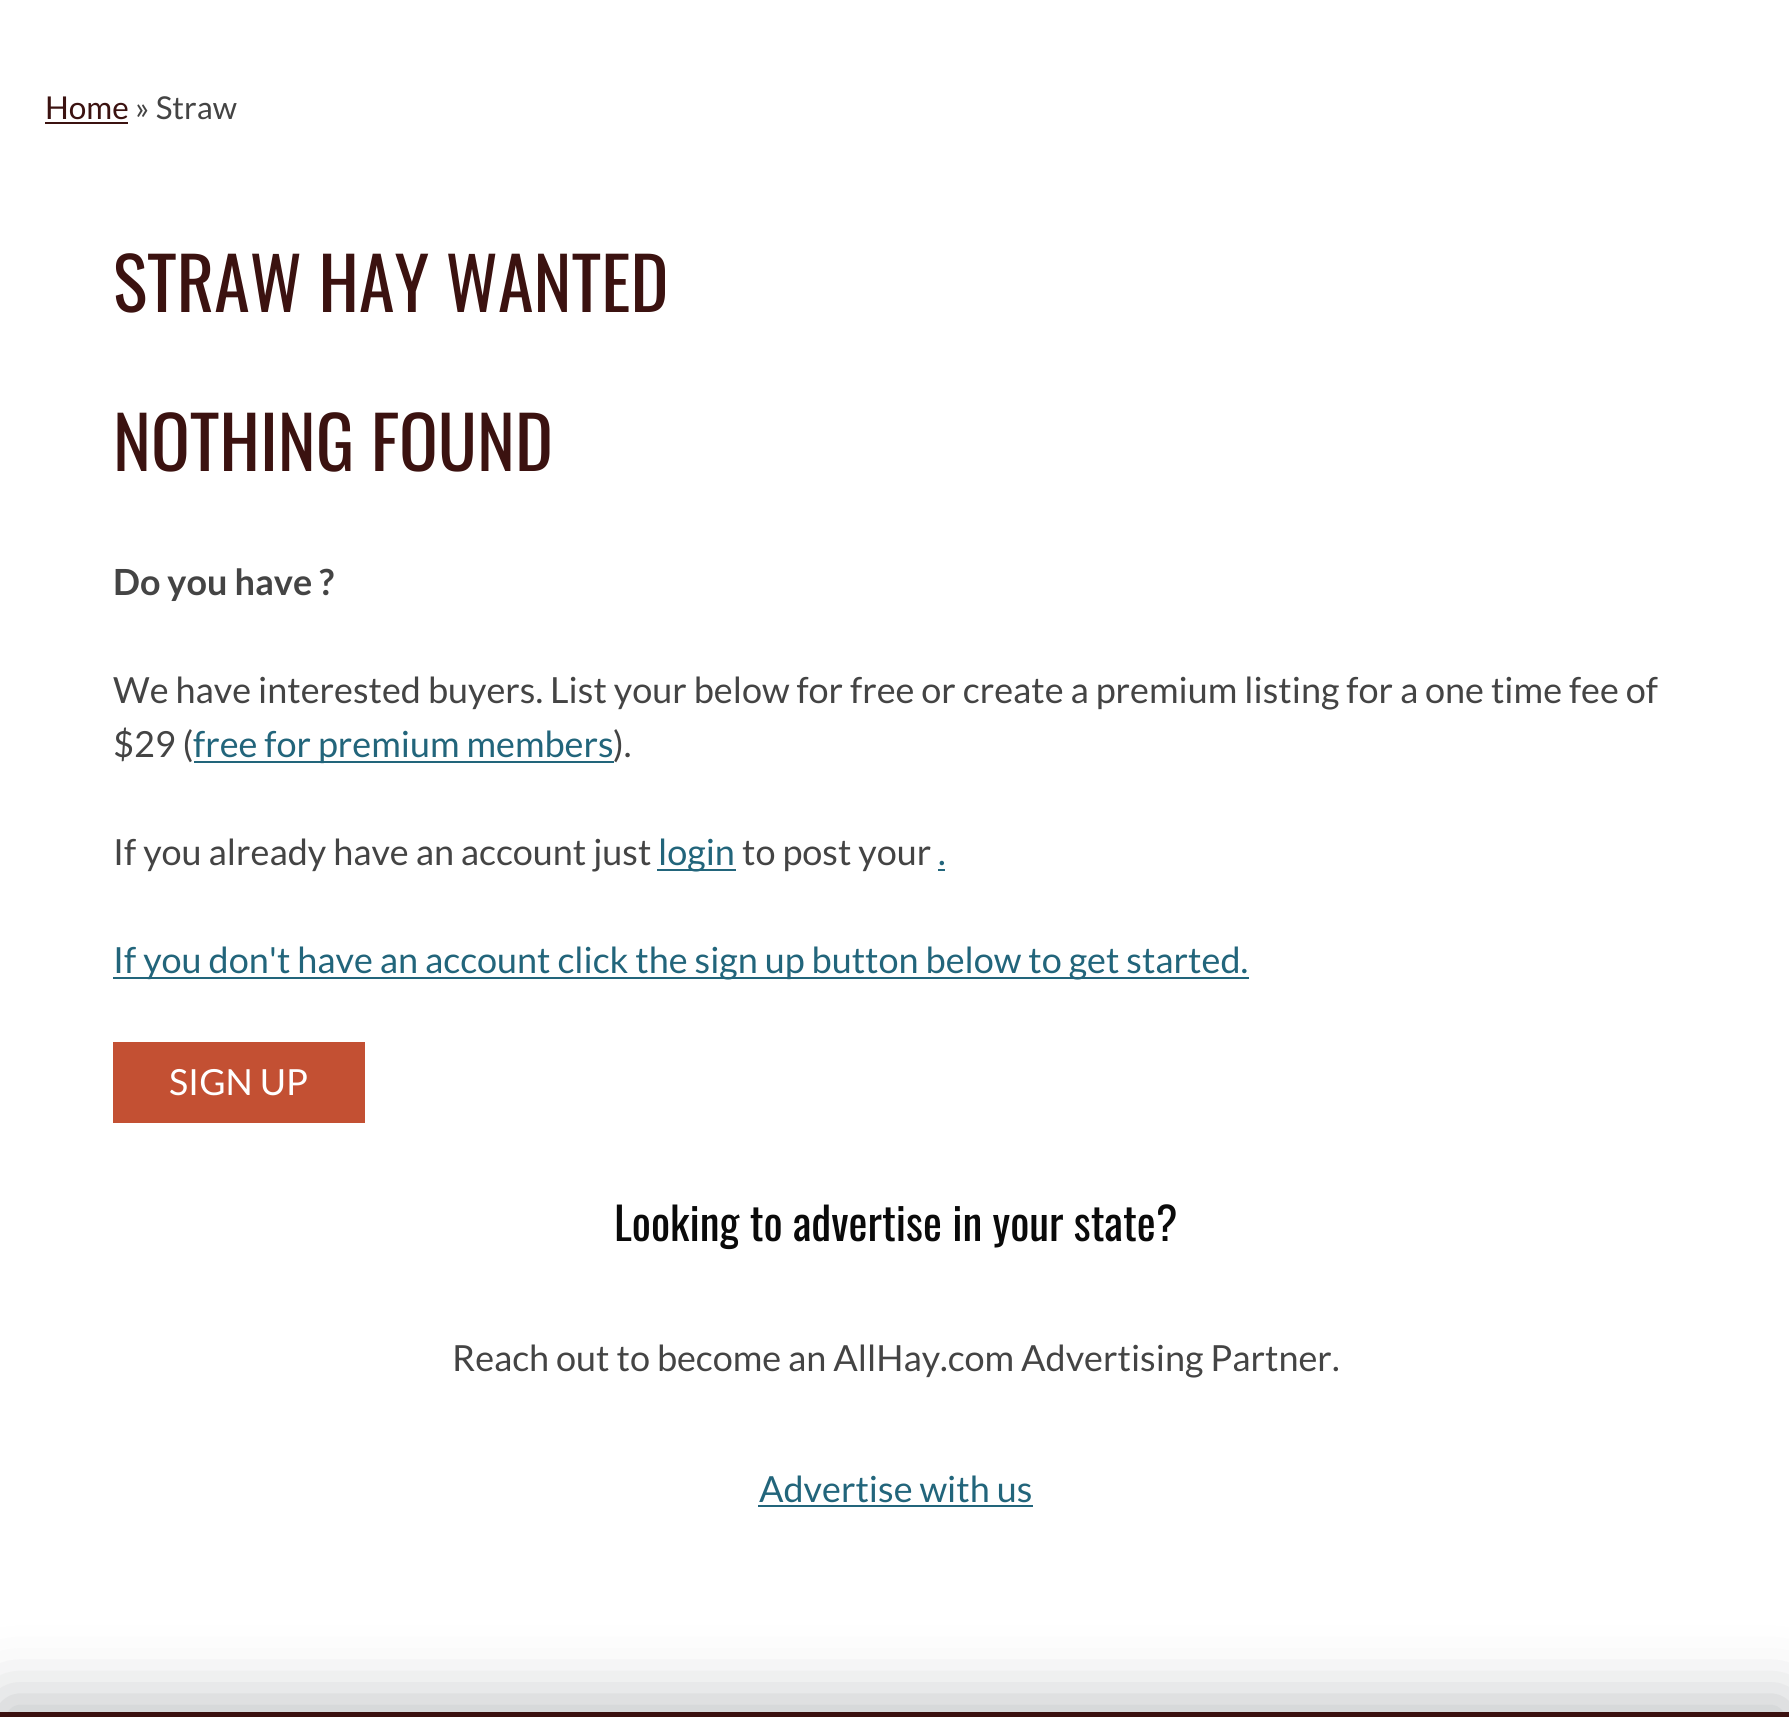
import math
import cairo


def use_color(cr, r, g, b):
  cr.set_source_rgb(r / 255, g / 255, b / 255)

def text(cr, x, y, s, family, size, color, bold=False, italic=False):
  cr.select_font_face(family, cairo.FONT_SLANT_ITALIC if italic else cairo.FONT_SLANT_NORMAL, cairo.FONT_WEIGHT_BOLD if bold else cairo.FONT_WEIGHT_NORMAL)
  cr.set_font_size(size)
  use_color(cr, *color)
  cr.move_to(x, y)
  cr.show_text(s)

def box(cr, x, y, w, h, *color):
  use_color(cr, *color)
  cr.rectangle(x, y, w, h)
  cr.fill()

def round_rect(cr, x, y, w, h, r):
  cr.new_sub_path()
  for i, (u, v) in enumerate([(x + w - r, y + h - r), (x + r, y + h - r), (x + r, y + r), (x + w - r, y + r)]):
    cr.arc(u, v, r, i * math.pi / 2, (i + 1) * math.pi / 2)
  cr.close_path()

def shadow(cr, x, y, w, h, r, blur, alpha):
  cr.push_group_with_content(cairo.CONTENT_ALPHA)
  cr.set_operator(cairo.OPERATOR_SOURCE)
  for i in range(15, -16, -2):
    e = blur * i / 6
    if min(w, h) + 2 * e > 0:
      cr.set_source_rgba(0, 0, 0, alpha * math.erfc((i - 1) / 8.5) / 2)
      round_rect(cr, x - e, y - e, w + 2 * e, h + 2 * e, max(0, min(r + e + blur * .6, min(w, h) / 2 + e)))
      cr.fill()
  cr.mask(cr.pop_group())

def draw(cr):
  use_color(cr, 255, 255, 255)
  cr.paint()
  box(cr, 45, 122, 83, 2, 59, 18, 16)
  box(cr, 194, 761, 420, 2, 34, 101, 123)
  box(cr, 657, 869, 79, 2, 34, 101, 123)
  box(cr, 938, 869, 7, 2, 34, 101, 123)
  box(cr, 113, 977, 1136, 2, 34, 101, 123)
  box(cr, 113, 1042, 252, 81, 195, 80, 51)
  box(cr, 758, 1505, 275, 2, 34, 101, 123)
  use_color(cr, 3, 10, 18)
  shadow(cr, 0, 1699, 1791, 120, 0, 34, 0.25)
  box(cr, 0, 1712, 1789, 5, 59, 17, 16)
  text(cr, 45, 119, "Home", "Lato", 31.5, (59, 18, 16))
  text(cr, 135, 119, "» Straw", "Lato", 31.5, (68, 68, 68))
  text(cr, 113, 312, "STRAW HAY WANTED", "Oswald", 72, (59, 18, 16))
  text(cr, 113, 471, "NOTHING FOUND", "Oswald", 72, (59, 18, 16))
  text(cr, 113, 595, "Do you have ?", "Lato", 36, (68, 68, 68), bold=True)
  text(cr, 113, 703, "We have interested buyers. List your below for free or create a premium listing for a one time fee of", "Lato", 36, (68, 68, 68))
  text(cr, 113, 757, "$29 (", "Lato", 36, (68, 68, 68))
  text(cr, 193, 757, "free for premium members", "Lato", 36, (34, 101, 123))
  text(cr, 613, 757, ").", "Lato", 36, (68, 68, 68))
  text(cr, 113, 865, "If you already have an account just", "Lato", 36, (68, 68, 68))
  text(cr, 658, 865, "login", "Lato", 36, (34, 101, 123))
  text(cr, 742, 865, "to post your", "Lato", 36, (68, 68, 68))
  text(cr, 938, 865, ".", "Lato", 36, (34, 101, 123))
  text(cr, 113, 973, "If you don't have an account click the sign up button below to get started.", "Lato", 36, (34, 101, 123))
  text(cr, 169, 1095, "SIGN UP", "Lato", 36, (255, 255, 255))
  text(cr, 614, 1241, "Looking to advertise in your state?", "Oswald", 45, (10, 10, 10))
  text(cr, 452, 1371, "Reach out to become an AllHay.com Advertising Partner.", "Lato", 36, (68, 68, 68))
  text(cr, 759, 1502, "Advertise with us", "Lato", 36, (34, 101, 123))


surface = cairo.ImageSurface(cairo.FORMAT_RGB24, 1789, 1717)
cr = cairo.Context(surface)
options = cairo.FontOptions()
options.set_hint_metrics(cairo.HINT_METRICS_OFF)
options.set_hint_style(cairo.HINT_STYLE_NONE)
cr.set_font_options(options)
cr.set_miter_limit(4)
draw(cr)
surface.write_to_png("out.png")
